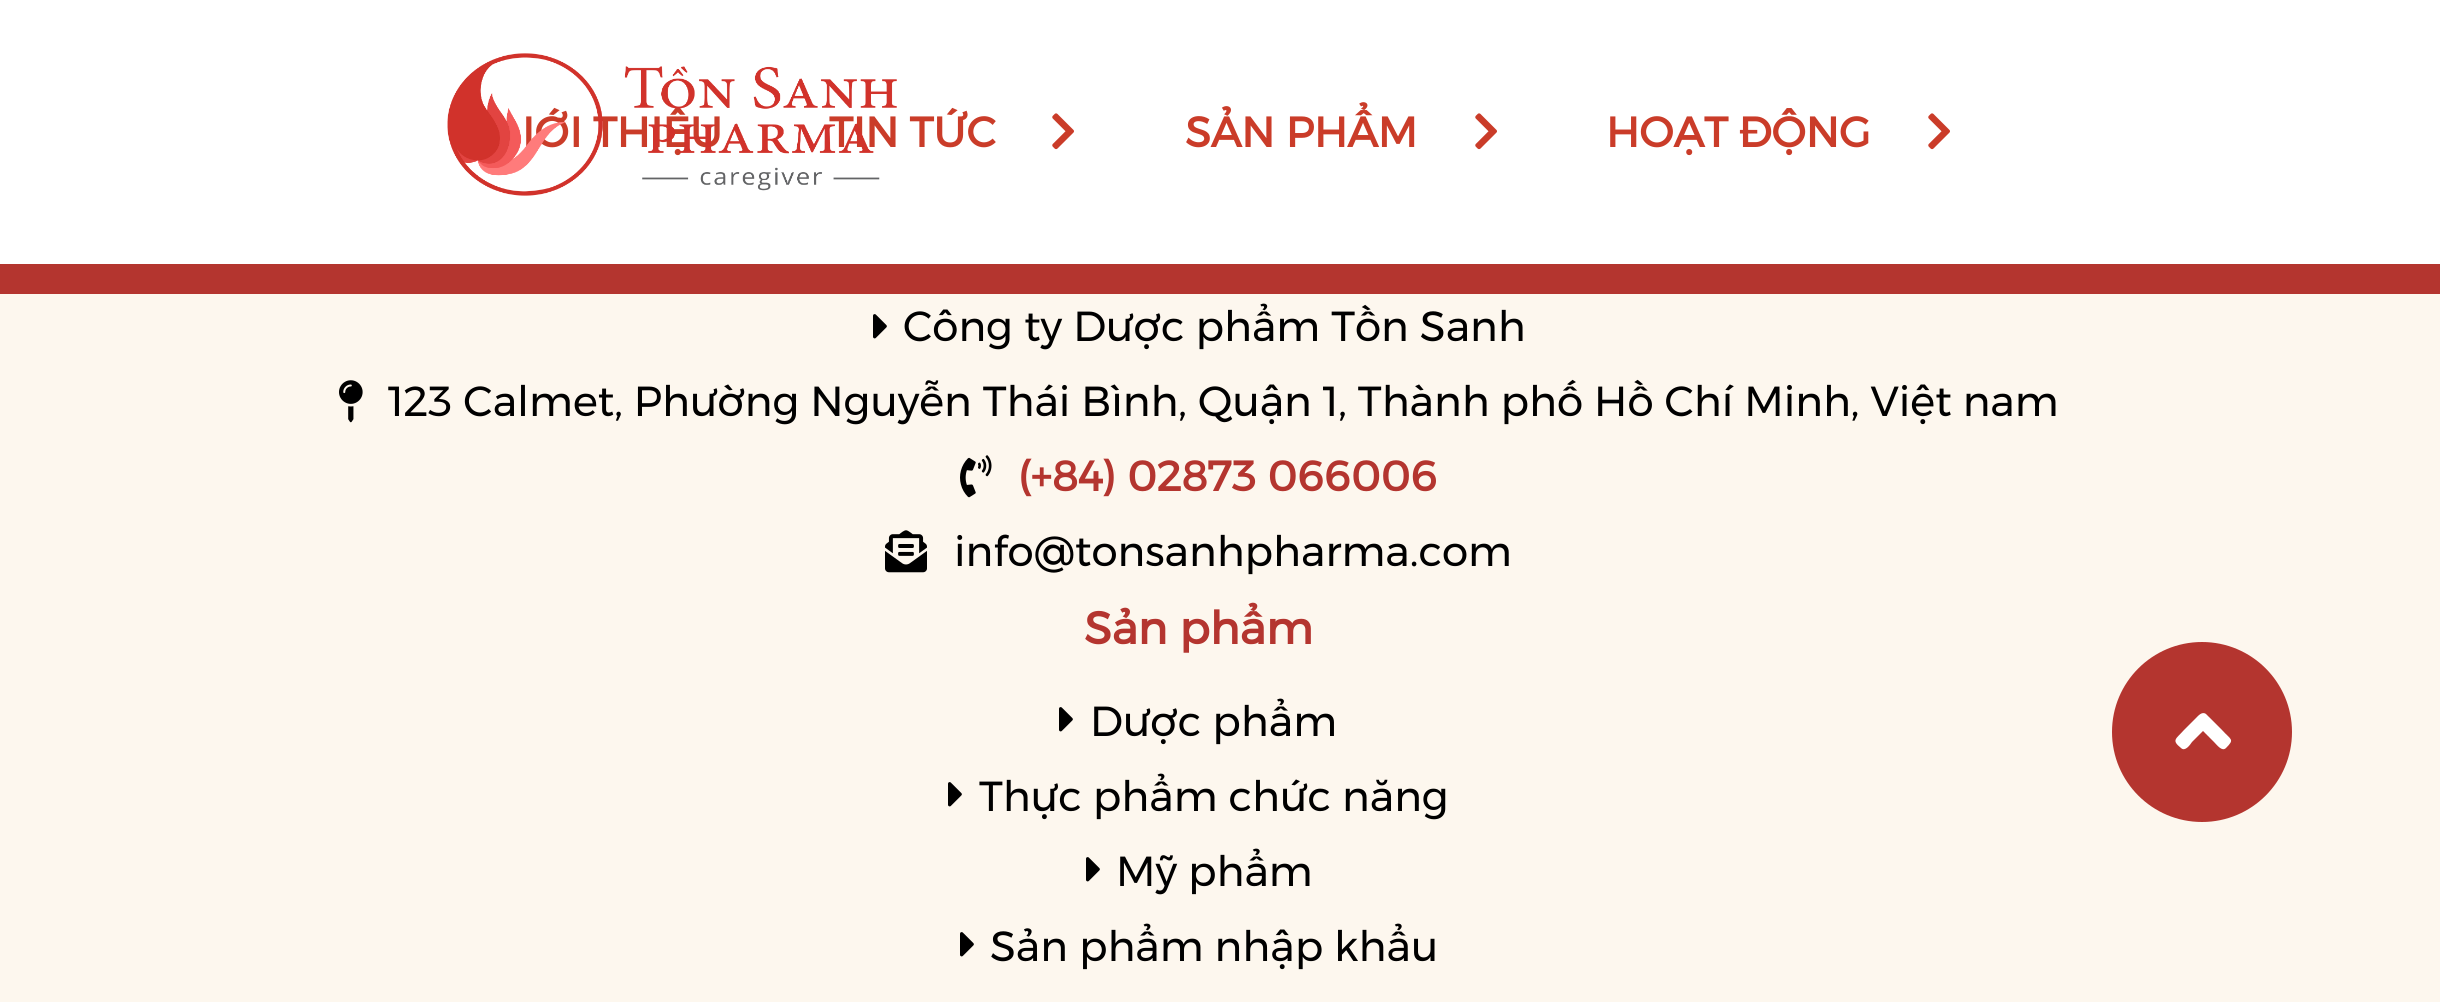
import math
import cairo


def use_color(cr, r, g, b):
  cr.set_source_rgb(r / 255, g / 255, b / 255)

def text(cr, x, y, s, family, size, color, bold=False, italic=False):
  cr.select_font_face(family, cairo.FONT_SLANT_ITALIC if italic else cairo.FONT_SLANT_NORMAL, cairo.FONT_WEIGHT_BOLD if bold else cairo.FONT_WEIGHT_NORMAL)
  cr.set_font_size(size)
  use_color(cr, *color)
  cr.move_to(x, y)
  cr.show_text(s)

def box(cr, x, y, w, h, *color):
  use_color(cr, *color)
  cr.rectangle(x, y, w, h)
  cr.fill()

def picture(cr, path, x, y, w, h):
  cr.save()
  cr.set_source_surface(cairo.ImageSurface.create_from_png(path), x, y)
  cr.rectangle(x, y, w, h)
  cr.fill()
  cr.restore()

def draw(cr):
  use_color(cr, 253, 247, 238)
  cr.paint()
  box(cr, 0, 0, 2440, 264, 255, 255, 255)
  box(cr, 0, 264, 2440, 30, 180, 53, 47)
  picture(cr, "img_02.png", 1052, 113, 22, 37)
  picture(cr, "img_02.png", 1475, 113, 22, 37)
  picture(cr, "img_02.png", 1928, 113, 22, 37)
  picture(cr, "img_03.png", 873, 314, 14, 25)
  picture(cr, "img_04.png", 339, 380, 24, 43)
  picture(cr, "img_05.png", 960, 455, 32, 43)
  picture(cr, "img_06.png", 885, 530, 42, 43)
  picture(cr, "img_03.png", 1059, 707, 14, 25)
  picture(cr, "img_03.png", 948, 782, 14, 25)
  picture(cr, "img_03.png", 1086, 857, 14, 25)
  picture(cr, "img_03.png", 960, 932, 14, 25)
  cr.arc(2202, 732, 90, 0, 2 * math.pi)
  cr.fill()
  use_color(cr, 255, 255, 255)
  cr.new_path()
  cr.move_to(2206, 714)
  cr.line_to(2222, 730)
  cr.curve_to(2231, 740, 2235, 739, 2226, 748)
  cr.curve_to(2222, 752, 2217, 745, 2214, 742)
  cr.line_to(2203, 731)
  cr.line_to(2192, 742)
  cr.curve_to(2190, 745, 2185, 752, 2181, 748)
  cr.curve_to(2171, 740, 2176, 739, 2184, 730)
  cr.line_to(2196, 718)
  cr.curve_to(2198, 716, 2202, 711, 2206, 714)
  cr.close_path()
  cr.fill()
  text(cr, 522, 147, "IỚI THIỆU", "Montserrat", 42, (202, 60, 41), bold=True)
  text(cr, 829, 147, "TIN TỨC", "Montserrat", 42, (202, 60, 41), bold=True)
  picture(cr, "img_01.png", 447, 53, 450, 143)
  text(cr, 1185, 147, "SẢN PHẨM", "Montserrat", 42, (202, 60, 41), bold=True)
  text(cr, 1606, 147, "HOẠT ĐỘNG", "Montserrat", 42, (202, 60, 41), bold=True)
  text(cr, 903, 341, "Công ty Dược phẩm Tồn Sanh", "Montserrat", 42, (0, 0, 0))
  text(cr, 388, 416, "123 Calmet, Phường Nguyễn Thái Bình, Quận 1, Thành phố Hồ Chí Minh, Việt nam", "Montserrat", 42, (0, 0, 0))
  text(cr, 1018, 491, "(+84) 02873 066006", "Montserrat", 42, (180, 53, 47), bold=True)
  text(cr, 954, 566, "info@tonsanhpharma.com", "Montserrat", 42, (0, 0, 0))
  text(cr, 1084, 644, "Sản phẩm", "Montserrat", 45, (180, 53, 47), bold=True)
  text(cr, 1090, 736, "Dược phẩm", "Montserrat", 42, (0, 0, 0))
  text(cr, 979, 811, "Thực phẩm chức năng", "Montserrat", 42, (0, 0, 0))
  text(cr, 1116, 886, "Mỹ phẩm", "Montserrat", 42, (0, 0, 0))
  text(cr, 990, 961, "Sản phẩm nhập khẩu", "Montserrat", 42, (0, 0, 0))


surface = cairo.ImageSurface(cairo.FORMAT_RGB24, 2440, 1002)
cr = cairo.Context(surface)
options = cairo.FontOptions()
options.set_hint_metrics(cairo.HINT_METRICS_OFF)
options.set_hint_style(cairo.HINT_STYLE_NONE)
cr.set_font_options(options)
cr.set_miter_limit(4)
draw(cr)
surface.write_to_png("out.png")
